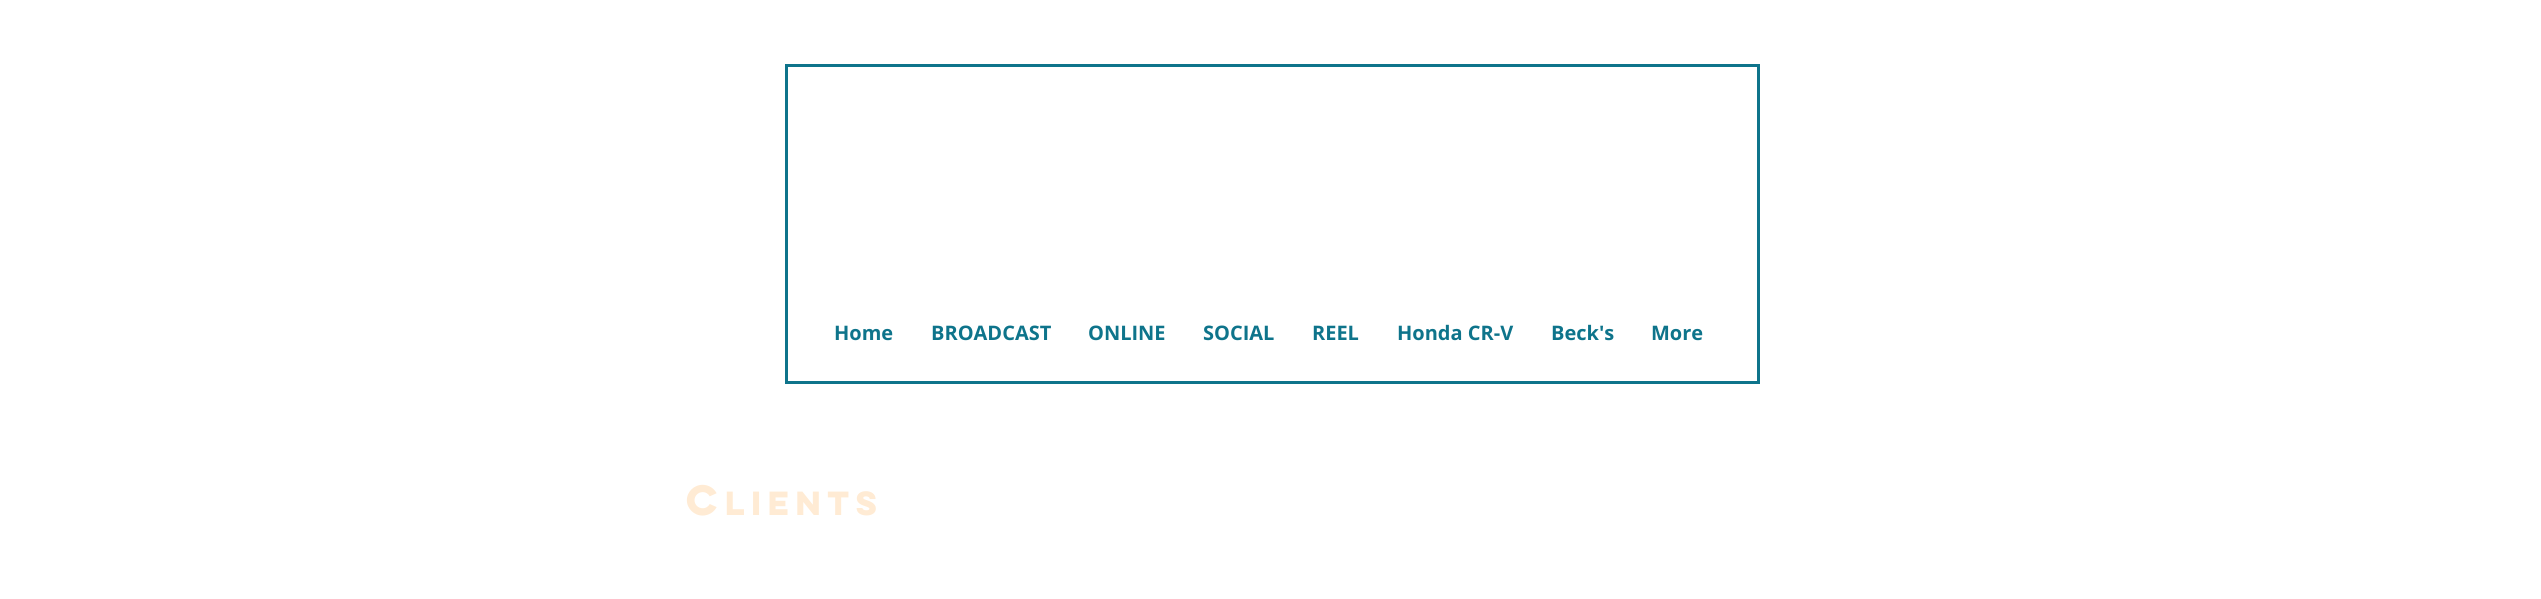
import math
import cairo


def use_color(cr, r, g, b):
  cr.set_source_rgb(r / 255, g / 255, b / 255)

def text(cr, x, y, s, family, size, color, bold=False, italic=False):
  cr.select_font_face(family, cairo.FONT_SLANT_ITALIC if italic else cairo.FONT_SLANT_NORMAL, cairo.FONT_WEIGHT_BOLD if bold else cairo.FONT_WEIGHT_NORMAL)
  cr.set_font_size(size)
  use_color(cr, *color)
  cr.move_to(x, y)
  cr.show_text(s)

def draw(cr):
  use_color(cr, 255, 255, 255)
  cr.paint()
  cr.rectangle(786.5, 65.5, 972, 317)
  use_color(cr, 14, 116, 139)
  cr.set_line_width(3)
  cr.stroke()
  text(cr, 834, 340, "Home", "Open Sans", 20, (14, 116, 139), bold=True)
  text(cr, 931, 340, "BROADCAST", "Open Sans", 20, (14, 116, 139), bold=True)
  text(cr, 1088, 340, "ONLINE", "Open Sans", 20, (14, 116, 139), bold=True)
  text(cr, 1203, 340, "SOCIAL", "Open Sans", 20, (14, 116, 139), bold=True)
  text(cr, 1312, 340, "REEL", "Open Sans", 20, (14, 116, 139), bold=True)
  text(cr, 1397, 340, "Honda CR-V", "Open Sans", 20, (14, 116, 139), bold=True)
  text(cr, 1551, 340, "Beck's", "Open Sans", 20, (14, 116, 139), bold=True)
  text(cr, 1651, 340, "More", "Open Sans", 20, (14, 116, 139), bold=True)
  text(cr, 686, 515, "C", "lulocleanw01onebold", 38, (255, 235, 212), bold=True)
  text(cr, 725, 515, "lients", "lulocleanw01onebold", 30, (255, 235, 212), bold=True)


surface = cairo.ImageSurface(cairo.FORMAT_RGB24, 2541, 599)
cr = cairo.Context(surface)
options = cairo.FontOptions()
options.set_hint_metrics(cairo.HINT_METRICS_OFF)
options.set_hint_style(cairo.HINT_STYLE_NONE)
cr.set_font_options(options)
cr.set_miter_limit(4)
draw(cr)
surface.write_to_png("out.png")
